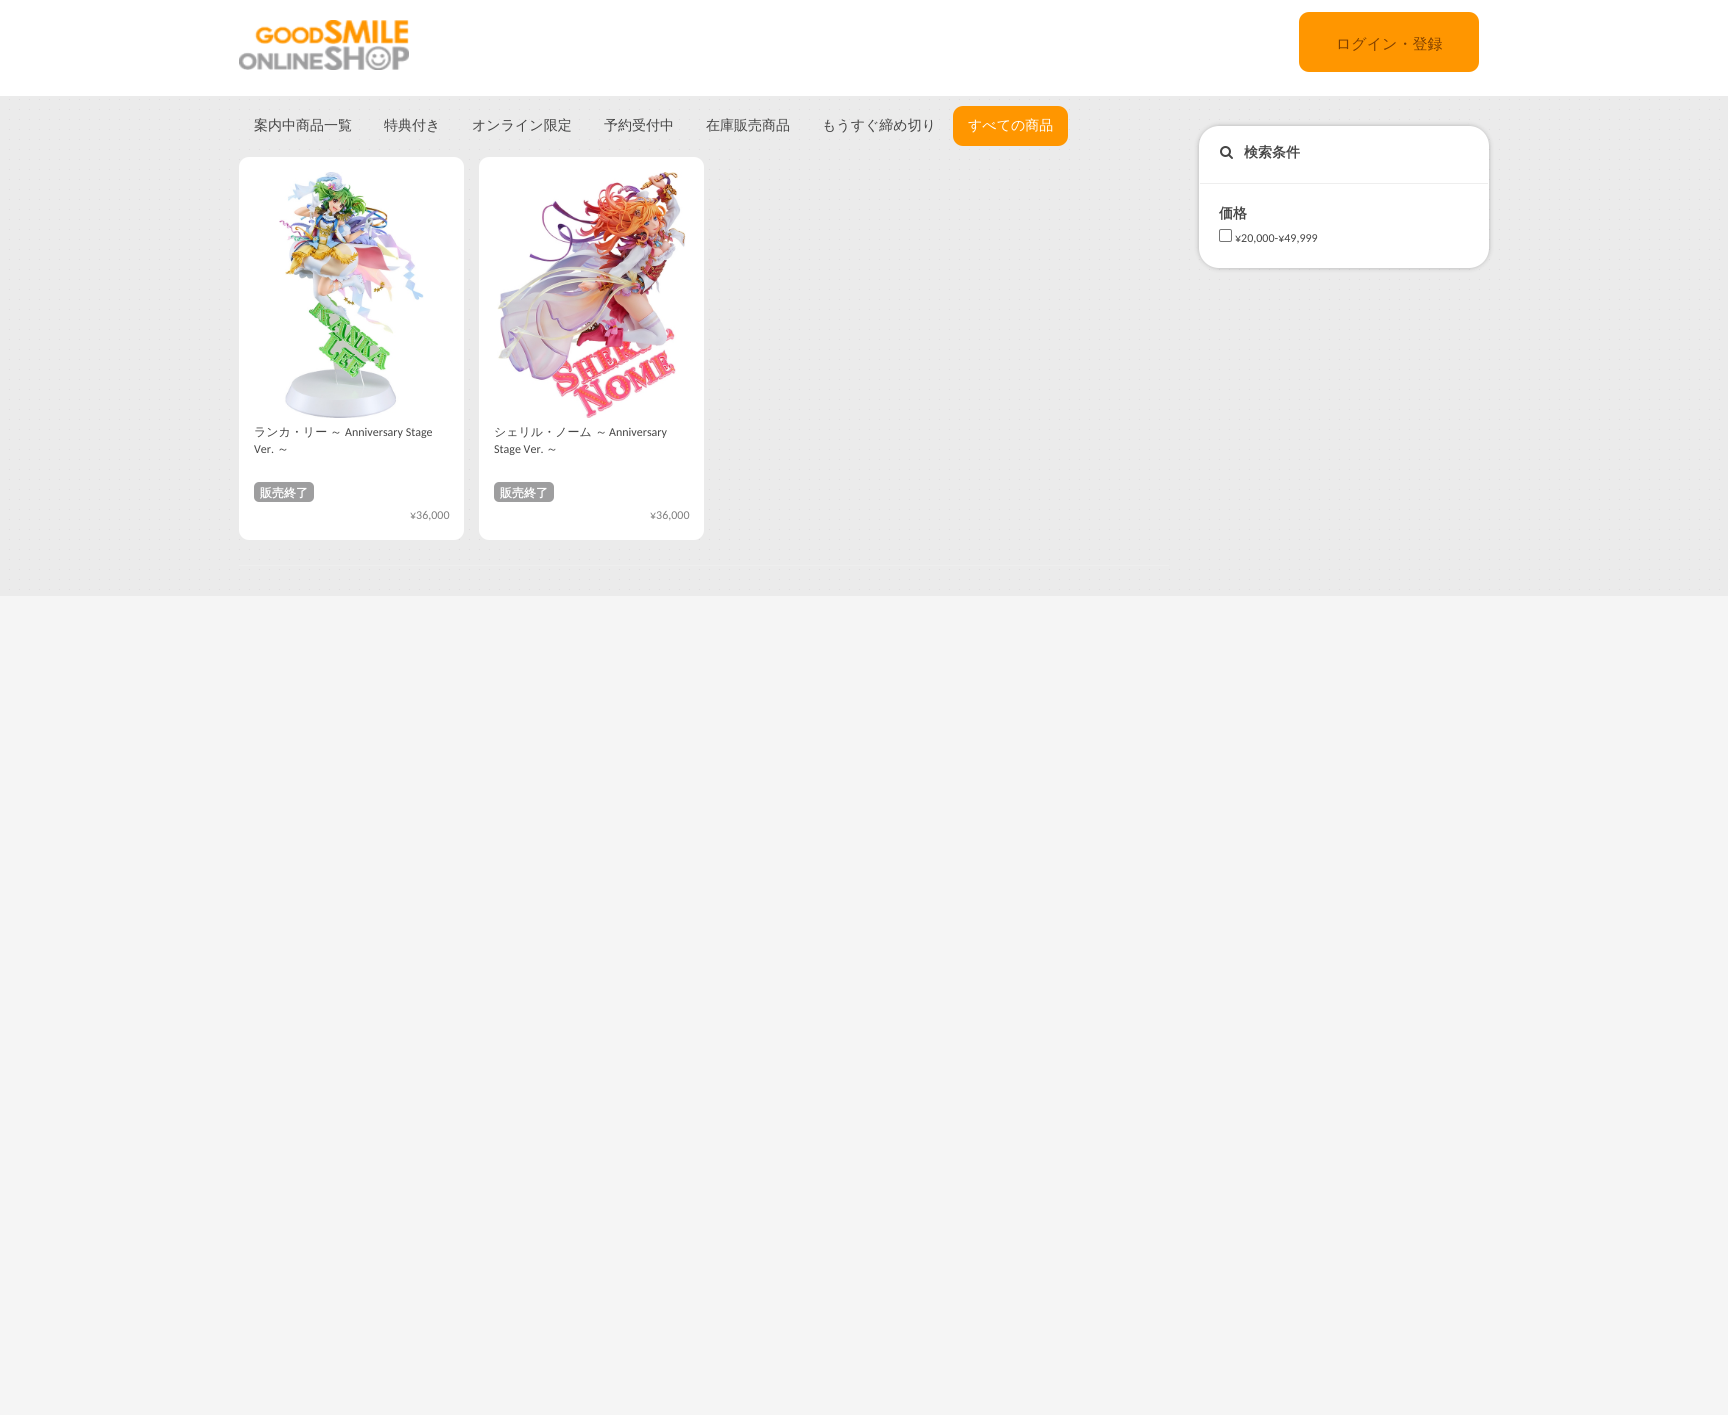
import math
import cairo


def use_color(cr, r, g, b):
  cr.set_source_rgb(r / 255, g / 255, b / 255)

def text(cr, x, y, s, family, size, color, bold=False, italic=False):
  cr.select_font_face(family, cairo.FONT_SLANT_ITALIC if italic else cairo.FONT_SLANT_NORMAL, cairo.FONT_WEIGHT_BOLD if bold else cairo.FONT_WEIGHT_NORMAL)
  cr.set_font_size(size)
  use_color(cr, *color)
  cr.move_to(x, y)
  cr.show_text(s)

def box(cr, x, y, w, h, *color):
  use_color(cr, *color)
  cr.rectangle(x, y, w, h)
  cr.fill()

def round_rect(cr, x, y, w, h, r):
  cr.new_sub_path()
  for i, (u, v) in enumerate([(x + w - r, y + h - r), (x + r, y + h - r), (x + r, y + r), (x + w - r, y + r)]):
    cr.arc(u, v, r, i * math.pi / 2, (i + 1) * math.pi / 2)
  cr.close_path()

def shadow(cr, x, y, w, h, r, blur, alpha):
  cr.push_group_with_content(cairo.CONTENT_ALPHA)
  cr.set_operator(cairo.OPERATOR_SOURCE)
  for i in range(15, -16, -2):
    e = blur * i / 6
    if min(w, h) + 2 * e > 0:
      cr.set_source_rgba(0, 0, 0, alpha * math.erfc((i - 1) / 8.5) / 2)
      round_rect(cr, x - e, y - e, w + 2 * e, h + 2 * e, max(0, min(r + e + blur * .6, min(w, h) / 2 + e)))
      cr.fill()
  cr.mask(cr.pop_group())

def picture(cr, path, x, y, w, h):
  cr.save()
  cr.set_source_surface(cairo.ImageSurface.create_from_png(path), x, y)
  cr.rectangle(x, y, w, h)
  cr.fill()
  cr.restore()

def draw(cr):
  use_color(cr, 245, 245, 245)
  cr.paint()
  picture(cr, "img_01.png", 0, 96, 1728, 500)
  box(cr, 0, 0, 1728, 96, 255, 255, 255)
  picture(cr, "img_02.png", 239, 20, 170, 50)
  use_color(cr, 255, 150, 0)
  round_rect(cr, 1299, 12, 180, 60, 10)
  cr.fill()
  round_rect(cr, 953, 106, 115, 40, 10)
  cr.fill()
  use_color(cr, 255, 255, 255)
  round_rect(cr, 239, 157, 225, 383, 10)
  cr.fill()
  picture(cr, "img_03.png", 279, 172, 145, 246)
  use_color(cr, 158, 158, 159)
  round_rect(cr, 254, 482, 60, 20, 5)
  cr.fill()
  use_color(cr, 255, 255, 255)
  round_rect(cr, 479, 157, 225, 383, 10)
  cr.fill()
  picture(cr, "img_04.png", 497, 172, 189, 246)
  use_color(cr, 158, 158, 159)
  round_rect(cr, 494, 482, 60, 20, 5)
  cr.fill()
  box(cr, 239, 565, 930, 1, 238, 238, 238)
  use_color(cr, 0, 0, 0)
  shadow(cr, 1199, 126, 290, 142, 20, 2.5, 0.25)
  use_color(cr, 255, 255, 255)
  round_rect(cr, 1199, 126, 290, 142, 20)
  cr.fill()
  picture(cr, "img_05.png", 1220, 146, 13, 13)
  box(cr, 1200, 183, 288, 1, 238, 238, 238)
  round_rect(cr, 1219.5, 229.5, 12, 12, 1.5)
  use_color(cr, 118, 118, 118)
  cr.set_line_width(1)
  cr.stroke()
  text(cr, 1336, 49, "ログイン・登録", "WenQuanYi Zen Hei Medium", 15, (128, 64, 0))
  text(cr, 254, 130, "案内中商品一覧", "WenQuanYi Zen Hei Medium", 14, (69, 69, 69))
  text(cr, 384, 130, "特典付き", "WenQuanYi Zen Hei Medium", 14, (69, 69, 69))
  text(cr, 472, 130, "オンライン限定", "WenQuanYi Zen Hei Medium", 14, (69, 69, 69))
  text(cr, 604, 130, "予約受付中", "WenQuanYi Zen Hei Medium", 14, (69, 69, 69))
  text(cr, 706, 130, "在庫販売商品", "WenQuanYi Zen Hei Medium", 14, (69, 69, 69))
  text(cr, 822, 130, "もうすぐ締め切り", "WenQuanYi Zen Hei Medium", 14, (69, 69, 69))
  text(cr, 968, 130, "すべての商品", "WenQuanYi Zen Hei Medium", 14, (255, 255, 255))
  text(cr, 254, 436, "ランカ・リー", "WenQuanYi Zen Hei Medium", 12, (69, 69, 69))
  text(cr, 330, 436, "～", "WenQuanYi Zen Hei Medium", 12, (69, 69, 69))
  text(cr, 345, 436, "Anniversary Stage", "Carlito", 12, (69, 69, 69))
  text(cr, 254, 453, "Ver.", "Carlito", 12, (69, 69, 69))
  text(cr, 277, 453, "～", "WenQuanYi Zen Hei Medium", 12, (69, 69, 69))
  text(cr, 260, 497, "販売終了", "WenQuanYi Zen Hei", 12, (255, 255, 255), bold=True)
  text(cr, 410, 519, "¥36,000", "Carlito", 12, (127, 127, 127))
  text(cr, 494, 436, "シェリル・ノーム ～", "WenQuanYi Zen Hei Medium", 12, (69, 69, 69))
  text(cr, 609, 436, "Anniversary", "Carlito", 12, (69, 69, 69))
  text(cr, 494, 453, "Stage Ver.", "Carlito", 12, (69, 69, 69))
  text(cr, 546, 453, "～", "WenQuanYi Zen Hei Medium", 12, (69, 69, 69))
  text(cr, 500, 497, "販売終了", "WenQuanYi Zen Hei", 12, (255, 255, 255), bold=True)
  text(cr, 650, 519, "¥36,000", "Carlito", 12, (127, 127, 127))
  text(cr, 1244, 157, "検索条件", "WenQuanYi Zen Hei", 14, (69, 69, 69), bold=True)
  text(cr, 1219, 218, "価格", "WenQuanYi Zen Hei", 14, (69, 69, 69), bold=True)
  text(cr, 1235, 242, "¥20,000-¥49,999", "Carlito", 12, (69, 69, 69))


surface = cairo.ImageSurface(cairo.FORMAT_RGB24, 1728, 1415)
cr = cairo.Context(surface)
options = cairo.FontOptions()
options.set_hint_metrics(cairo.HINT_METRICS_OFF)
options.set_hint_style(cairo.HINT_STYLE_NONE)
cr.set_font_options(options)
cr.set_miter_limit(4)
draw(cr)
surface.write_to_png("out.png")
